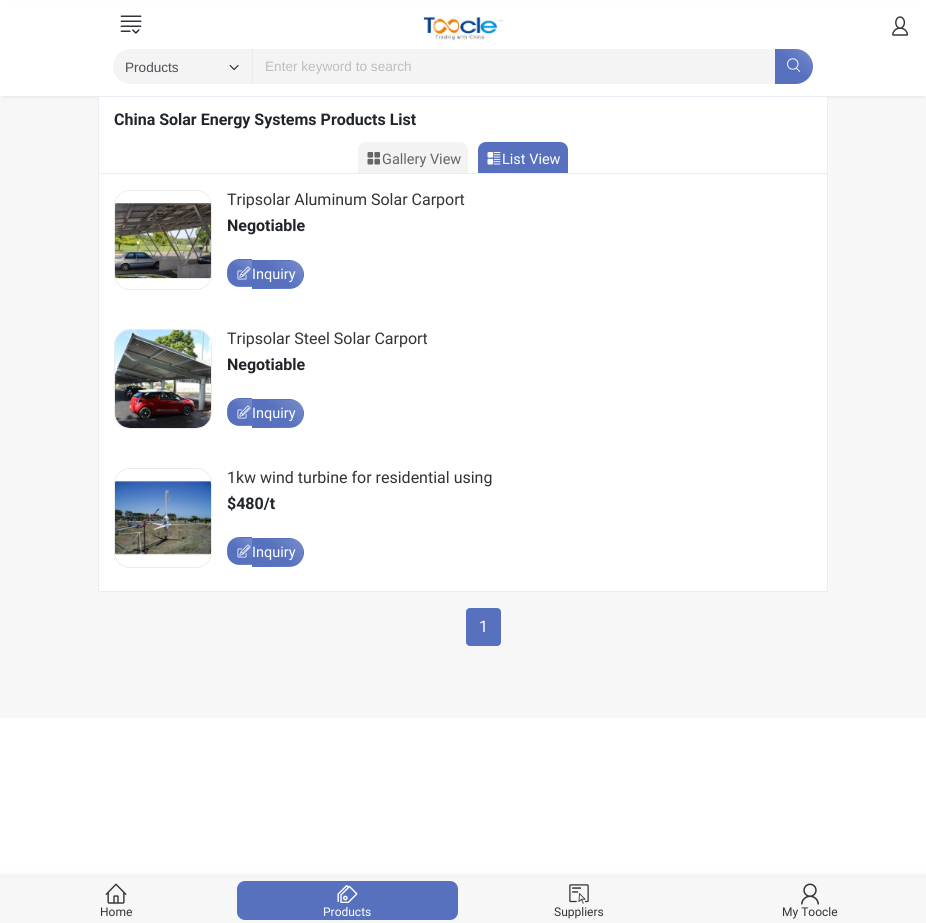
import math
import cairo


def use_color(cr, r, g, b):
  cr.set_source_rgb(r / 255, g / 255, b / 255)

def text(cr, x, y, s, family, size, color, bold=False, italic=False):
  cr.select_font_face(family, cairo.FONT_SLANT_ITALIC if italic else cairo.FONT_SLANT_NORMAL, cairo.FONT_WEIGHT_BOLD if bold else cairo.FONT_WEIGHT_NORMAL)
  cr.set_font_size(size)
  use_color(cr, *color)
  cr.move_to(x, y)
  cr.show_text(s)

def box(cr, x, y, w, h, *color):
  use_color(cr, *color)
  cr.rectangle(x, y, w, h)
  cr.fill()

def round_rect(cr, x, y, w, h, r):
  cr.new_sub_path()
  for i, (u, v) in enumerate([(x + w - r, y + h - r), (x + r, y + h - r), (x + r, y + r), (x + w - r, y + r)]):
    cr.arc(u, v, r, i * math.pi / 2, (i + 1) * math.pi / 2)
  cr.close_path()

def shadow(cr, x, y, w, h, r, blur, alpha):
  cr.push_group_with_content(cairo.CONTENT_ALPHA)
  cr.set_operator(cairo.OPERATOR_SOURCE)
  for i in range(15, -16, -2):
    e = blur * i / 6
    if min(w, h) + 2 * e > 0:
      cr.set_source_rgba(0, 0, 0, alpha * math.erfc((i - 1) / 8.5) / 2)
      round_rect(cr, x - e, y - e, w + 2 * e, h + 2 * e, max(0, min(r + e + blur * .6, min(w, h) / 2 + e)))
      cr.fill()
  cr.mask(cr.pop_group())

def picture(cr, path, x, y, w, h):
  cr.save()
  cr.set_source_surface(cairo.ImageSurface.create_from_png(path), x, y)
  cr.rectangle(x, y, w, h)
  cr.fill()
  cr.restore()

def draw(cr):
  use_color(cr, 255, 255, 255)
  cr.paint()
  box(cr, 0, 96, 926, 622, 247, 247, 247)
  use_color(cr, 0, 0, 0)
  shadow(cr, 3, 6, 920, 90, 0, 2.5, 0.12)
  box(cr, 0, 3, 926, 93, 255, 255, 255)
  picture(cr, "img_01.png", 120, 15, 22, 19)
  picture(cr, "img_02.png", 423, 16, 80, 25)
  picture(cr, "img_03.png", 892, 16, 17, 20)
  use_color(cr, 244, 244, 244)
  round_rect(cr, 113, 49, 700, 35, 17.5)
  cr.fill()
  box(cr, 252, 49, 1, 35, 235, 235, 235)
  picture(cr, "img_04.png", 229, 65, 10, 5)
  gradient = cairo.LinearGradient(776, 85, 812, 48)
  gradient.add_color_stop_rgba(0.5, 0.341, 0.443, 0.745, 1)
  gradient.add_color_stop_rgba(1, 0.341, 0.443, 0.745, 0.8)
  cr.set_source(gradient)
  cr.new_path()
  cr.move_to(775, 49)
  cr.line_to(795.5, 49)
  cr.curve_to(805, 49, 813, 57, 813, 66.5)
  cr.curve_to(813, 76, 805, 84, 795.5, 84)
  cr.line_to(775, 84)
  cr.close_path()
  cr.fill()
  picture(cr, "img_05.png", 787, 58, 14, 14)
  use_color(cr, 255, 255, 255)
  cr.rectangle(98.5, 96.5, 729, 77)
  cr.fill_preserve()
  use_color(cr, 233, 238, 244)
  cr.set_line_width(1)
  cr.stroke()
  use_color(cr, 243, 243, 243)
  cr.new_path()
  cr.move_to(366, 142)
  cr.line_to(460, 142)
  cr.curve_to(464.5, 142, 468, 145.5, 468, 150)
  cr.line_to(468, 173)
  cr.line_to(358, 173)
  cr.line_to(358, 150)
  cr.curve_to(358, 145.5, 361.5, 142, 366, 142)
  cr.close_path()
  cr.fill()
  picture(cr, "img_06.png", 367, 152, 13, 13)
  use_color(cr, 87, 113, 190)
  cr.new_path()
  cr.move_to(486, 142)
  cr.line_to(560, 142)
  cr.curve_to(564.5, 142, 568, 145.5, 568, 150)
  cr.line_to(568, 173)
  cr.line_to(478, 173)
  cr.line_to(478, 150)
  cr.curve_to(478, 145.5, 481.5, 142, 486, 142)
  cr.close_path()
  cr.fill()
  picture(cr, "img_07.png", 487, 152, 14, 13)
  use_color(cr, 255, 255, 255)
  cr.rectangle(98.5, 173.5, 729, 418)
  cr.fill_preserve()
  use_color(cr, 233, 238, 244)
  cr.stroke()
  round_rect(cr, 114.5, 190.5, 97, 99, 15.5)
  use_color(cr, 235, 235, 235)
  cr.stroke()
  picture(cr, "img_08.png", 115, 191, 96, 97)
  cr.save()
  cr.new_path()
  cr.move_to(239.5, 259)
  cr.line_to(252, 259)
  cr.line_to(252, 287)
  cr.line_to(239.5, 287)
  cr.curve_to(232.5, 287, 227, 281.5, 227, 274.5)
  cr.line_to(227, 271.5)
  cr.curve_to(227, 264.5, 232.5, 259, 239.5, 259)
  cr.close_path()
  cr.clip()
  gradient = cairo.LinearGradient(228, 286, 253, 261)
  gradient.add_color_stop_rgba(0.5, 0.341, 0.443, 0.745, 1)
  gradient.add_color_stop_rgba(1, 0.475, 0.553, 0.796, 1)
  cr.set_source(gradient)
  cr.rectangle(228, 260, 24, 26)
  cr.fill()
  cr.restore()
  picture(cr, "img_09.png", 237, 266, 14, 14)
  cr.save()
  cr.new_path()
  cr.move_to(239.5, 259)
  cr.line_to(252, 259)
  cr.line_to(252, 287)
  cr.line_to(239.5, 287)
  cr.curve_to(232.5, 287, 227, 281.5, 227, 274.5)
  cr.line_to(227, 271.5)
  cr.curve_to(227, 264.5, 232.5, 259, 239.5, 259)
  cr.close_path()
  cr.clip()
  gradient = cairo.LinearGradient(228, 260, 253, 235)
  gradient.add_color_stop_rgba(0.5, 0.341, 0.443, 0.745, 1)
  gradient.add_color_stop_rgba(1, 0.475, 0.553, 0.796, 1)
  cr.set_source(gradient)
  cr.rectangle(228, 259, 24, 1)
  cr.fill()
  gradient = cairo.LinearGradient(204, 286, 229, 261)
  gradient.add_color_stop_rgba(0.5, 0.341, 0.443, 0.745, 1)
  gradient.add_color_stop_rgba(1, 0.475, 0.553, 0.796, 1)
  cr.set_source(gradient)
  cr.rectangle(227, 260, 1, 26)
  cr.fill()
  gradient = cairo.LinearGradient(228, 312, 253, 287)
  gradient.add_color_stop_rgba(0.5, 0.341, 0.443, 0.745, 1)
  gradient.add_color_stop_rgba(1, 0.475, 0.553, 0.796, 1)
  cr.set_source(gradient)
  cr.rectangle(228, 286, 24, 1)
  cr.fill()
  cr.restore()
  cr.save()
  cr.new_path()
  cr.move_to(252, 260)
  cr.line_to(289.5, 260)
  cr.curve_to(297.5, 260, 304, 266.5, 304, 274.5)
  cr.curve_to(304, 282.5, 297.5, 289, 289.5, 289)
  cr.line_to(252, 289)
  cr.close_path()
  cr.clip()
  gradient = cairo.LinearGradient(258, 267, 297, 228)
  gradient.add_color_stop_rgba(0.5, 0.341, 0.443, 0.745, 1)
  gradient.add_color_stop_rgba(1, 0.475, 0.553, 0.796, 1)
  cr.set_source(gradient)
  cr.rectangle(252, 260, 51, 1)
  cr.fill()
  gradient = cairo.LinearGradient(258, 294, 297, 255)
  gradient.add_color_stop_rgba(0.5, 0.341, 0.443, 0.745, 1)
  gradient.add_color_stop_rgba(1, 0.475, 0.553, 0.796, 1)
  cr.set_source(gradient)
  cr.rectangle(252, 261, 51, 27)
  cr.fill()
  gradient = cairo.LinearGradient(309, 294, 348, 255)
  gradient.add_color_stop_rgba(0.5, 0.341, 0.443, 0.745, 1)
  gradient.add_color_stop_rgba(1, 0.475, 0.553, 0.796, 1)
  cr.set_source(gradient)
  cr.rectangle(303, 261, 1, 27)
  cr.fill()
  gradient = cairo.LinearGradient(258, 321, 297, 282)
  gradient.add_color_stop_rgba(0.5, 0.341, 0.443, 0.745, 1)
  gradient.add_color_stop_rgba(1, 0.475, 0.553, 0.796, 1)
  cr.set_source(gradient)
  cr.rectangle(252, 288, 51, 1)
  cr.fill()
  cr.restore()
  round_rect(cr, 114.5, 329.5, 97, 99, 15.5)
  cr.stroke()
  picture(cr, "img_10.png", 115, 330, 96, 98)
  cr.save()
  cr.new_path()
  cr.move_to(239.5, 398)
  cr.line_to(252, 398)
  cr.line_to(252, 426)
  cr.line_to(239.5, 426)
  cr.curve_to(232.5, 426, 227, 420.5, 227, 413.5)
  cr.line_to(227, 410.5)
  cr.curve_to(227, 403.5, 232.5, 398, 239.5, 398)
  cr.close_path()
  cr.clip()
  gradient = cairo.LinearGradient(228, 425, 253, 400)
  gradient.add_color_stop_rgba(0.5, 0.341, 0.443, 0.745, 1)
  gradient.add_color_stop_rgba(1, 0.475, 0.553, 0.796, 1)
  cr.set_source(gradient)
  cr.rectangle(228, 399, 24, 26)
  cr.fill()
  cr.restore()
  picture(cr, "img_09.png", 237, 405, 14, 14)
  cr.save()
  cr.new_path()
  cr.move_to(239.5, 398)
  cr.line_to(252, 398)
  cr.line_to(252, 426)
  cr.line_to(239.5, 426)
  cr.curve_to(232.5, 426, 227, 420.5, 227, 413.5)
  cr.line_to(227, 410.5)
  cr.curve_to(227, 403.5, 232.5, 398, 239.5, 398)
  cr.close_path()
  cr.clip()
  gradient = cairo.LinearGradient(228, 399, 253, 374)
  gradient.add_color_stop_rgba(0.5, 0.341, 0.443, 0.745, 1)
  gradient.add_color_stop_rgba(1, 0.475, 0.553, 0.796, 1)
  cr.set_source(gradient)
  cr.rectangle(228, 398, 24, 1)
  cr.fill()
  gradient = cairo.LinearGradient(204, 425, 229, 400)
  gradient.add_color_stop_rgba(0.5, 0.341, 0.443, 0.745, 1)
  gradient.add_color_stop_rgba(1, 0.475, 0.553, 0.796, 1)
  cr.set_source(gradient)
  cr.rectangle(227, 399, 1, 26)
  cr.fill()
  gradient = cairo.LinearGradient(228, 451, 253, 426)
  gradient.add_color_stop_rgba(0.5, 0.341, 0.443, 0.745, 1)
  gradient.add_color_stop_rgba(1, 0.475, 0.553, 0.796, 1)
  cr.set_source(gradient)
  cr.rectangle(228, 425, 24, 1)
  cr.fill()
  cr.restore()
  cr.save()
  cr.new_path()
  cr.move_to(252, 399)
  cr.line_to(289.5, 399)
  cr.curve_to(297.5, 399, 304, 405.5, 304, 413.5)
  cr.curve_to(304, 421.5, 297.5, 428, 289.5, 428)
  cr.line_to(252, 428)
  cr.close_path()
  cr.clip()
  gradient = cairo.LinearGradient(258, 406, 297, 367)
  gradient.add_color_stop_rgba(0.5, 0.341, 0.443, 0.745, 1)
  gradient.add_color_stop_rgba(1, 0.475, 0.553, 0.796, 1)
  cr.set_source(gradient)
  cr.rectangle(252, 399, 51, 1)
  cr.fill()
  gradient = cairo.LinearGradient(258, 433, 297, 394)
  gradient.add_color_stop_rgba(0.5, 0.341, 0.443, 0.745, 1)
  gradient.add_color_stop_rgba(1, 0.475, 0.553, 0.796, 1)
  cr.set_source(gradient)
  cr.rectangle(252, 400, 51, 27)
  cr.fill()
  gradient = cairo.LinearGradient(309, 433, 348, 394)
  gradient.add_color_stop_rgba(0.5, 0.341, 0.443, 0.745, 1)
  gradient.add_color_stop_rgba(1, 0.475, 0.553, 0.796, 1)
  cr.set_source(gradient)
  cr.rectangle(303, 400, 1, 27)
  cr.fill()
  gradient = cairo.LinearGradient(258, 460, 297, 421)
  gradient.add_color_stop_rgba(0.5, 0.341, 0.443, 0.745, 1)
  gradient.add_color_stop_rgba(1, 0.475, 0.553, 0.796, 1)
  cr.set_source(gradient)
  cr.rectangle(252, 427, 51, 1)
  cr.fill()
  cr.restore()
  round_rect(cr, 114.5, 468.5, 97, 99, 15.5)
  cr.stroke()
  picture(cr, "img_11.png", 115, 469, 96, 97)
  cr.save()
  cr.new_path()
  cr.move_to(239.5, 537)
  cr.line_to(252, 537)
  cr.line_to(252, 565)
  cr.line_to(239.5, 565)
  cr.curve_to(232.5, 565, 227, 559.5, 227, 552.5)
  cr.line_to(227, 549.5)
  cr.curve_to(227, 542.5, 232.5, 537, 239.5, 537)
  cr.close_path()
  cr.clip()
  gradient = cairo.LinearGradient(228, 564, 253, 539)
  gradient.add_color_stop_rgba(0.5, 0.341, 0.443, 0.745, 1)
  gradient.add_color_stop_rgba(1, 0.475, 0.553, 0.796, 1)
  cr.set_source(gradient)
  cr.rectangle(228, 538, 24, 26)
  cr.fill()
  cr.restore()
  picture(cr, "img_09.png", 237, 544, 14, 14)
  cr.save()
  cr.new_path()
  cr.move_to(239.5, 537)
  cr.line_to(252, 537)
  cr.line_to(252, 565)
  cr.line_to(239.5, 565)
  cr.curve_to(232.5, 565, 227, 559.5, 227, 552.5)
  cr.line_to(227, 549.5)
  cr.curve_to(227, 542.5, 232.5, 537, 239.5, 537)
  cr.close_path()
  cr.clip()
  gradient = cairo.LinearGradient(228, 538, 253, 513)
  gradient.add_color_stop_rgba(0.5, 0.341, 0.443, 0.745, 1)
  gradient.add_color_stop_rgba(1, 0.475, 0.553, 0.796, 1)
  cr.set_source(gradient)
  cr.rectangle(228, 537, 24, 1)
  cr.fill()
  gradient = cairo.LinearGradient(204, 564, 229, 539)
  gradient.add_color_stop_rgba(0.5, 0.341, 0.443, 0.745, 1)
  gradient.add_color_stop_rgba(1, 0.475, 0.553, 0.796, 1)
  cr.set_source(gradient)
  cr.rectangle(227, 538, 1, 26)
  cr.fill()
  gradient = cairo.LinearGradient(228, 590, 253, 565)
  gradient.add_color_stop_rgba(0.5, 0.341, 0.443, 0.745, 1)
  gradient.add_color_stop_rgba(1, 0.475, 0.553, 0.796, 1)
  cr.set_source(gradient)
  cr.rectangle(228, 564, 24, 1)
  cr.fill()
  cr.restore()
  cr.save()
  cr.new_path()
  cr.move_to(252, 538)
  cr.line_to(289.5, 538)
  cr.curve_to(297.5, 538, 304, 544.5, 304, 552.5)
  cr.curve_to(304, 560.5, 297.5, 567, 289.5, 567)
  cr.line_to(252, 567)
  cr.close_path()
  cr.clip()
  gradient = cairo.LinearGradient(258, 545, 297, 506)
  gradient.add_color_stop_rgba(0.5, 0.341, 0.443, 0.745, 1)
  gradient.add_color_stop_rgba(1, 0.475, 0.553, 0.796, 1)
  cr.set_source(gradient)
  cr.rectangle(252, 538, 51, 1)
  cr.fill()
  gradient = cairo.LinearGradient(258, 572, 297, 533)
  gradient.add_color_stop_rgba(0.5, 0.341, 0.443, 0.745, 1)
  gradient.add_color_stop_rgba(1, 0.475, 0.553, 0.796, 1)
  cr.set_source(gradient)
  cr.rectangle(252, 539, 51, 27)
  cr.fill()
  gradient = cairo.LinearGradient(309, 572, 348, 533)
  gradient.add_color_stop_rgba(0.5, 0.341, 0.443, 0.745, 1)
  gradient.add_color_stop_rgba(1, 0.475, 0.553, 0.796, 1)
  cr.set_source(gradient)
  cr.rectangle(303, 539, 1, 27)
  cr.fill()
  gradient = cairo.LinearGradient(258, 599, 297, 560)
  gradient.add_color_stop_rgba(0.5, 0.341, 0.443, 0.745, 1)
  gradient.add_color_stop_rgba(1, 0.475, 0.553, 0.796, 1)
  cr.set_source(gradient)
  cr.rectangle(252, 566, 51, 1)
  cr.fill()
  cr.restore()
  use_color(cr, 87, 113, 190)
  round_rect(cr, 466.5, 608.5, 34, 37, 3.5)
  cr.fill_preserve()
  cr.stroke()
  use_color(cr, 0, 0, 0)
  shadow(cr, -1, 876, 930, 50, 0, 3, 0.1)
  box(cr, 0, 878, 926, 45, 247, 247, 247)
  box(cr, 0, 877, 926, 1, 245, 245, 245)
  picture(cr, "img_12.png", 105, 883, 22, 21)
  use_color(cr, 87, 113, 190)
  round_rect(cr, 237, 881, 221, 39, 8)
  cr.fill()
  picture(cr, "img_13.png", 337, 885, 21, 18)
  picture(cr, "img_14.png", 569, 884, 20, 20)
  picture(cr, "img_15.png", 801, 883, 18, 22)
  text(cr, 125, 72, "Products", "Liberation Sans", 13.6, (73, 80, 87))
  text(cr, 265, 71, "Enter keyword to search", "Liberation Sans", 13.6, (189, 189, 189))
  text(cr, 114, 125, "China Solar Energy Systems Products List", "Roboto", 16, (33, 37, 41), bold=True)
  text(cr, 382, 164, "Gallery View", "Roboto", 14.5, (102, 102, 102))
  text(cr, 502, 164, "List View", "Roboto", 14.5, (255, 255, 255))
  text(cr, 227, 205, "Tripsolar Aluminum Solar Carport", "Roboto", 16, (51, 51, 51))
  text(cr, 227, 231, "Negotiable", "Roboto", 16, (33, 37, 41), bold=True)
  text(cr, 252, 279, "Inquiry", "Roboto", 14.5, (255, 255, 255))
  text(cr, 227, 344, "Tripsolar Steel Solar Carport", "Roboto", 16, (51, 51, 51))
  text(cr, 227, 370, "Negotiable", "Roboto", 16, (33, 37, 41), bold=True)
  text(cr, 252, 418, "Inquiry", "Roboto", 14.5, (255, 255, 255))
  text(cr, 227, 483, "1kw wind turbine for residential using", "Roboto", 16, (51, 51, 51))
  text(cr, 227, 509, "$480/t", "Roboto", 16, (33, 37, 41), bold=True)
  text(cr, 252, 557, "Inquiry", "Roboto", 14.5, (255, 255, 255))
  text(cr, 479, 632, "1", "Roboto", 16, (255, 255, 255))
  text(cr, 100, 916, "Home", "Roboto", 12, (51, 51, 51))
  text(cr, 323, 916, "Products", "Roboto", 12, (255, 255, 255))
  text(cr, 554, 916, "Suppliers", "Roboto", 12, (51, 51, 51))
  text(cr, 782, 916, "My Toocle", "Roboto", 12, (51, 51, 51))


surface = cairo.ImageSurface(cairo.FORMAT_RGB24, 926, 923)
cr = cairo.Context(surface)
options = cairo.FontOptions()
options.set_hint_metrics(cairo.HINT_METRICS_OFF)
options.set_hint_style(cairo.HINT_STYLE_NONE)
cr.set_font_options(options)
cr.set_miter_limit(4)
draw(cr)
surface.write_to_png("out.png")
